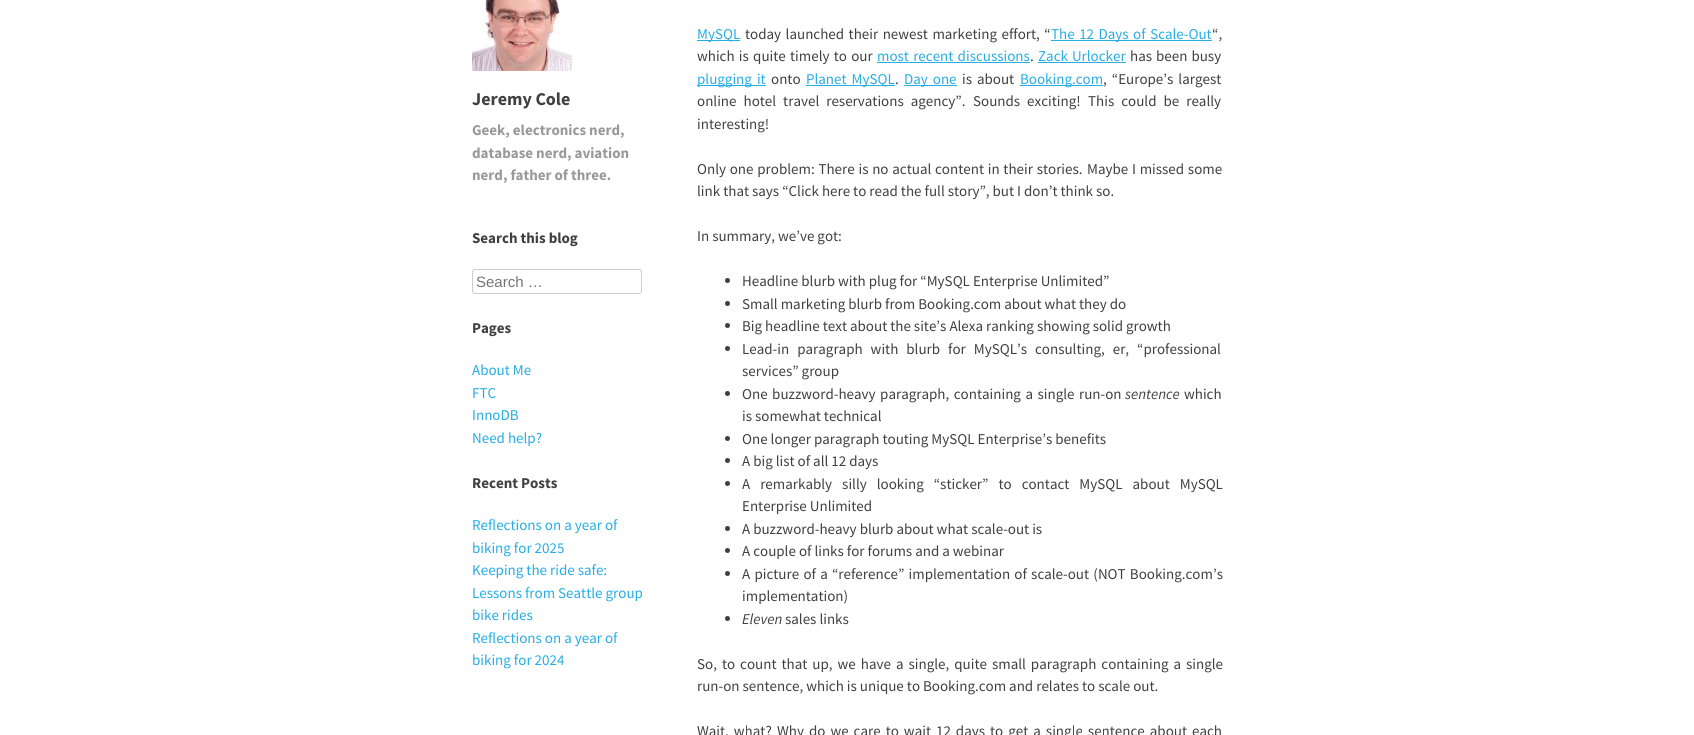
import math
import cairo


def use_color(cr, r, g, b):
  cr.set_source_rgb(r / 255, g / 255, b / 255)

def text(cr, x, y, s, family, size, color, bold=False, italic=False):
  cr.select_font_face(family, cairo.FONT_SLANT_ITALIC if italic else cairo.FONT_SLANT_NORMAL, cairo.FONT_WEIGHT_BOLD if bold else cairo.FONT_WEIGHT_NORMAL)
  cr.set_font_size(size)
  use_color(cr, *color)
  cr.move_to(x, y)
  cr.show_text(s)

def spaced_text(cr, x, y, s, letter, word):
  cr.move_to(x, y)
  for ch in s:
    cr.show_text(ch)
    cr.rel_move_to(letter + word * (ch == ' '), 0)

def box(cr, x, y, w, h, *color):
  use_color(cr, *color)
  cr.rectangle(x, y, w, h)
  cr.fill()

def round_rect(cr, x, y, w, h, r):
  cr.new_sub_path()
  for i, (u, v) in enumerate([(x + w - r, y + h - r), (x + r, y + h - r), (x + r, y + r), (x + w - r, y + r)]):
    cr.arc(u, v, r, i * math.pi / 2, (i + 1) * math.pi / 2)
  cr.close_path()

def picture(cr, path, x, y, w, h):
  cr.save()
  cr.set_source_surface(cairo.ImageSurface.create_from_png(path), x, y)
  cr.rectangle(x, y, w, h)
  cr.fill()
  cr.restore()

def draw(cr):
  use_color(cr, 255, 255, 255)
  cr.paint()
  round_rect(cr, 472.5, 269.5, 169, 24, 2.5)
  use_color(cr, 204, 204, 204)
  cr.set_line_width(1)
  cr.stroke()
  box(cr, 697, 40, 43, 1, 38, 173, 228)
  box(cr, 1051, 40, 161, 1, 38, 173, 228)
  box(cr, 877, 62, 153, 1, 38, 173, 228)
  box(cr, 1038, 62, 88, 1, 38, 173, 228)
  box(cr, 697, 85, 69, 1, 38, 173, 228)
  box(cr, 806, 85, 89, 1, 38, 173, 228)
  box(cr, 904, 85, 53, 1, 38, 173, 228)
  box(cr, 1020, 85, 83, 1, 38, 173, 228)
  use_color(cr, 64, 64, 64)
  cr.arc(727.5, 280.5, 2.5, 0, 2 * math.pi)
  cr.fill()
  cr.arc(727.5, 303.5, 2.5, 0, 2 * math.pi)
  cr.fill()
  cr.arc(727.5, 325.5, 2.5, 0, 2 * math.pi)
  cr.fill()
  cr.arc(727.5, 348.5, 2.5, 0, 2 * math.pi)
  cr.fill()
  cr.arc(727.5, 393.5, 2.5, 0, 2 * math.pi)
  cr.fill()
  cr.arc(727.5, 438.5, 2.5, 0, 2 * math.pi)
  cr.fill()
  cr.arc(727.5, 460.5, 2.5, 0, 2 * math.pi)
  cr.fill()
  cr.arc(727.5, 483.5, 2.5, 0, 2 * math.pi)
  cr.fill()
  cr.arc(727.5, 528.5, 2.5, 0, 2 * math.pi)
  cr.fill()
  cr.arc(727.5, 550.5, 2.5, 0, 2 * math.pi)
  cr.fill()
  cr.arc(727.5, 573.5, 2.5, 0, 2 * math.pi)
  cr.fill()
  cr.arc(727.5, 618.5, 2.5, 0, 2 * math.pi)
  cr.fill()
  picture(cr, "img_01.png", 472, 0, 100, 71)
  text(cr, 472, 243, "Search this blog", "Source Sans Pro", 15, (64, 64, 64), bold=True)
  text(cr, 476, 287, "Search …", "Liberation Sans", 15, (117, 117, 117))
  text(cr, 472, 333, "Pages", "Source Sans Pro", 15, (64, 64, 64), bold=True)
  text(cr, 472, 375, "About Me", "Source Sans Pro", 15, (38, 173, 228))
  text(cr, 472, 398, "FTC", "Source Sans Pro", 15, (38, 173, 228))
  text(cr, 472, 420, "InnoDB", "Source Sans Pro", 15, (38, 173, 228))
  text(cr, 472, 443, "Need help?", "Source Sans Pro", 15, (38, 173, 228))
  text(cr, 472, 488, "Recent Posts", "Source Sans Pro", 15, (64, 64, 64), bold=True)
  text(cr, 472, 530, "Reflections on a year of", "Source Sans Pro", 15, (38, 173, 228))
  text(cr, 472, 553, "biking for 2025", "Source Sans Pro", 15, (38, 173, 228))
  text(cr, 472, 575, "Keeping the ride safe:", "Source Sans Pro", 15, (38, 173, 228))
  text(cr, 472, 598, "Lessons from Seattle group", "Source Sans Pro", 15, (38, 173, 228))
  text(cr, 472, 620, "bike rides", "Source Sans Pro", 15, (38, 173, 228))
  text(cr, 472, 643, "Reflections on a year of", "Source Sans Pro", 15, (38, 173, 228))
  text(cr, 472, 665, "biking for 2024", "Source Sans Pro", 15, (38, 173, 228))
  text(cr, 697, 39, "MySQL", "Source Sans Pro", 15, (38, 173, 228))
  use_color(cr, 64, 64, 64)
  spaced_text(cr, 745, 39, "today launched their newest marketing effort, “", 0, 1.5)
  use_color(cr, 38, 173, 228)
  spaced_text(cr, 1051, 39, "The 12 Days of Scale-Out", 0, 1.5)
  text(cr, 1212, 39, "“,", "Source Sans Pro", 15, (64, 64, 64))
  spaced_text(cr, 697, 61, "which is quite timely to our", 0, 1.25)
  use_color(cr, 38, 173, 228)
  spaced_text(cr, 877, 61, "most recent discussions", 0, 1.25)
  text(cr, 1030, 61, ".", "Source Sans Pro", 15, (64, 64, 64))
  use_color(cr, 38, 173, 228)
  spaced_text(cr, 1038, 61, "Zack Urlocker", 0, 1)
  use_color(cr, 64, 64, 64)
  spaced_text(cr, 1130, 61, "has been busy", 0, 1)
  use_color(cr, 38, 173, 228)
  spaced_text(cr, 697, 84, "plugging it", 0, 2)
  text(cr, 771, 84, "onto", "Source Sans Pro", 15, (64, 64, 64))
  use_color(cr, 38, 173, 228)
  spaced_text(cr, 806, 84, "Planet MySQL", 0, 2)
  text(cr, 895, 84, ".", "Source Sans Pro", 15, (64, 64, 64))
  use_color(cr, 38, 173, 228)
  spaced_text(cr, 904, 84, "Day one", 0, 2)
  use_color(cr, 64, 64, 64)
  spaced_text(cr, 962, 84, "is about", 0, 2)
  text(cr, 1020, 84, "Booking.com", "Source Sans Pro", 15, (38, 173, 228))
  use_color(cr, 64, 64, 64)
  spaced_text(cr, 1103, 84, ", “Europe’s largest", 0, 2)
  spaced_text(cr, 697, 106, "online hotel travel reservations agency”.", 0, 4)
  spaced_text(cr, 973, 106, "Sounds exciting!", 0, 4)
  spaced_text(cr, 1088, 106, "This could be really", 0, 4)
  text(cr, 697, 129, "interesting!", "Source Sans Pro", 15, (64, 64, 64))
  spaced_text(cr, 697, 174, "Only one problem: There is no actual content in their stories.", 0, 0.75)
  spaced_text(cr, 1087, 174, "Maybe I missed some", 0, 0.75)
  text(cr, 697, 196, "link that says “Click here to read the full story”, but I don’t think so.", "Source Sans Pro", 15, (64, 64, 64))
  text(cr, 697, 241, "In summary, we’ve got:", "Source Sans Pro", 15, (64, 64, 64))
  text(cr, 742, 286, "Headline blurb with plug for “MySQL Enterprise Unlimited”", "Source Sans Pro", 15, (64, 64, 64))
  text(cr, 742, 309, "Small marketing blurb from Booking.com about what they do", "Source Sans Pro", 15, (64, 64, 64))
  text(cr, 742, 331, "Big headline text about the site’s Alexa ranking showing solid growth", "Source Sans Pro", 15, (64, 64, 64))
  spaced_text(cr, 742, 354, "Lead-in paragraph with blurb for MySQL’s consulting, er, “professional", 0, 5)
  text(cr, 742, 376, "services” group", "Source Sans Pro", 15, (64, 64, 64))
  spaced_text(cr, 742, 399, "One buzzword-heavy paragraph, containing a single run-on", 0, 1.5)
  text(cr, 1125, 399, "sentence", "Source Sans Pro", 15, (64, 64, 64), italic=True)
  text(cr, 1184, 399, "which", "Source Sans Pro", 15, (64, 64, 64))
  text(cr, 742, 421, "is somewhat technical", "Source Sans Pro", 15, (64, 64, 64))
  text(cr, 742, 444, "One longer paragraph touting MySQL Enterprise’s benefits", "Source Sans Pro", 15, (64, 64, 64))
  text(cr, 742, 466, "A big list of all 12 days", "Source Sans Pro", 15, (64, 64, 64))
  spaced_text(cr, 742, 489, "A remarkably silly looking “sticker” to contact MySQL about MySQL", 0, 7)
  text(cr, 742, 511, "Enterprise Unlimited", "Source Sans Pro", 15, (64, 64, 64))
  text(cr, 742, 534, "A buzzword-heavy blurb about what scale-out is", "Source Sans Pro", 15, (64, 64, 64))
  text(cr, 742, 556, "A couple of links for forums and a webinar", "Source Sans Pro", 15, (64, 64, 64))
  spaced_text(cr, 742, 579, "A picture of a “reference” implementation of scale-out (NOT Booking.com’s", 0, 1.25)
  text(cr, 742, 601, "implementation)", "Source Sans Pro", 15, (64, 64, 64))
  text(cr, 742, 624, "Eleven", "Source Sans Pro", 15, (64, 64, 64), italic=True)
  text(cr, 785, 624, "sales links", "Source Sans Pro", 15, (64, 64, 64))
  spaced_text(cr, 697, 669, "So, to count that up, we have a single, quite small paragraph containing a single", 0, 2)
  text(cr, 697, 691, "run-on sentence, which is unique to Booking.com and relates to scale out.", "Source Sans Pro", 15, (64, 64, 64))
  spaced_text(cr, 697, 736, "Wait, what?", 0, 2)
  spaced_text(cr, 777, 736, "Why do we care to wait 12 days to get a single sentence about each", 0, 2)
  text(cr, 472, 105, "Jeremy Cole", "Source Sans Pro", 18, (64, 64, 64), bold=True)
  text(cr, 472, 135, "Geek, electronics nerd,", "Source Sans Pro", 15, (153, 153, 153), bold=True)
  text(cr, 472, 158, "database nerd, aviation", "Source Sans Pro", 15, (153, 153, 153), bold=True)
  text(cr, 472, 180, "nerd, father of three.", "Source Sans Pro", 15, (153, 153, 153), bold=True)


surface = cairo.ImageSurface(cairo.FORMAT_RGB24, 1694, 735)
cr = cairo.Context(surface)
options = cairo.FontOptions()
options.set_hint_metrics(cairo.HINT_METRICS_OFF)
options.set_hint_style(cairo.HINT_STYLE_NONE)
cr.set_font_options(options)
cr.set_miter_limit(4)
draw(cr)
surface.write_to_png("out.png")
